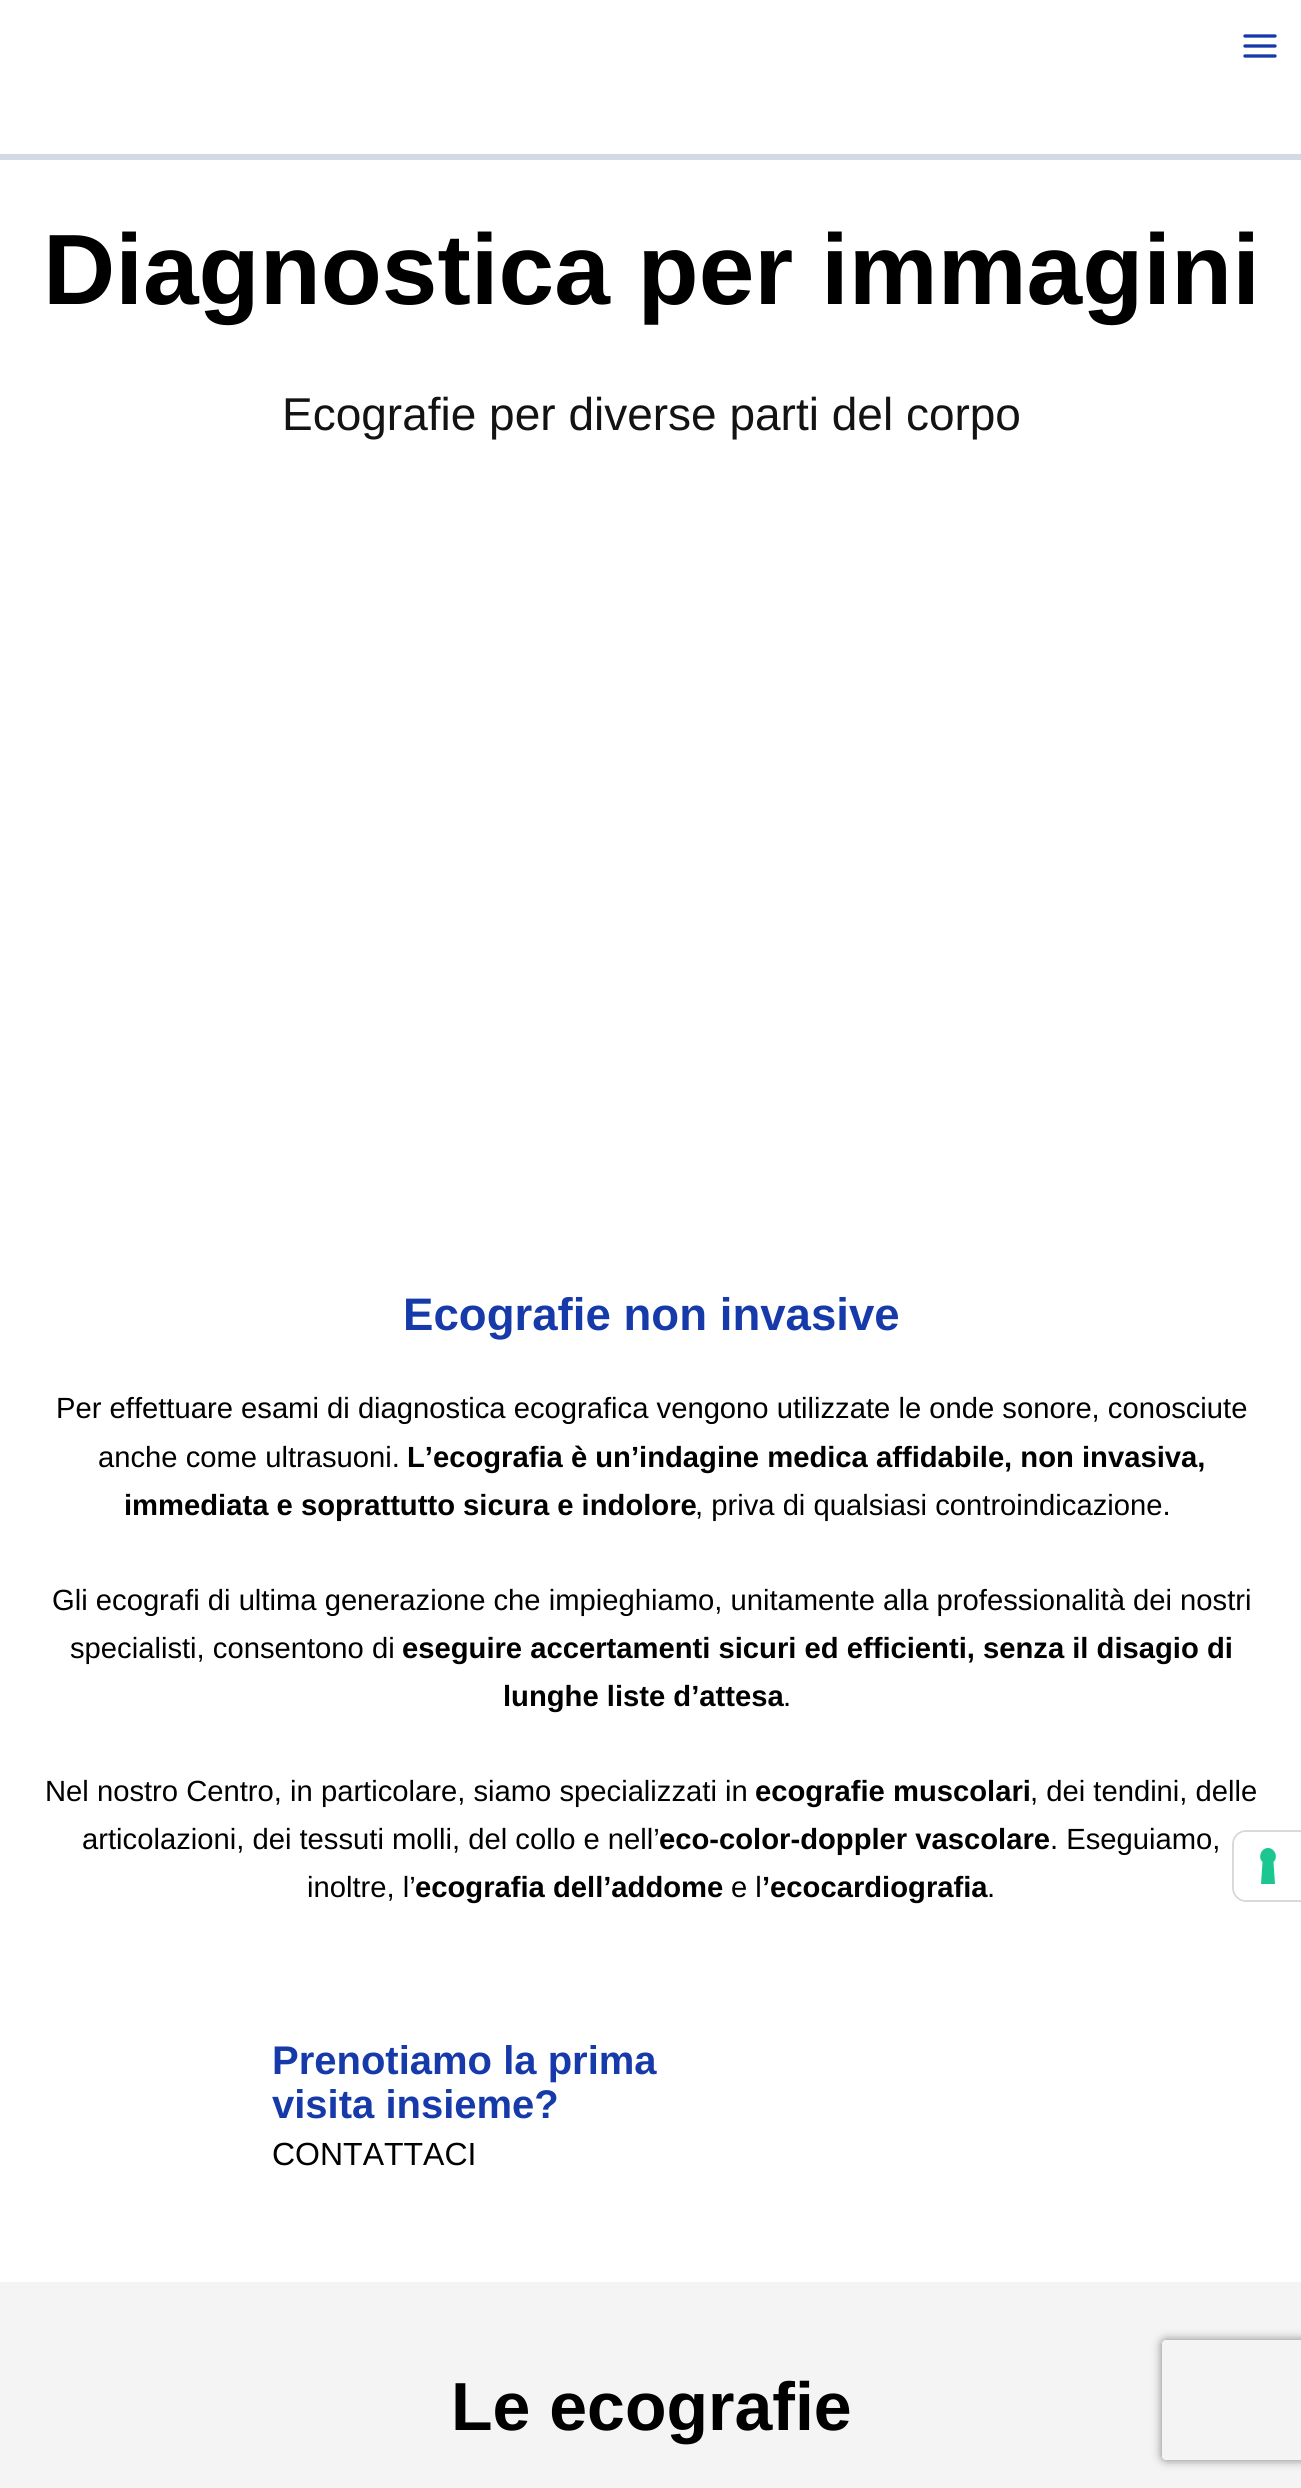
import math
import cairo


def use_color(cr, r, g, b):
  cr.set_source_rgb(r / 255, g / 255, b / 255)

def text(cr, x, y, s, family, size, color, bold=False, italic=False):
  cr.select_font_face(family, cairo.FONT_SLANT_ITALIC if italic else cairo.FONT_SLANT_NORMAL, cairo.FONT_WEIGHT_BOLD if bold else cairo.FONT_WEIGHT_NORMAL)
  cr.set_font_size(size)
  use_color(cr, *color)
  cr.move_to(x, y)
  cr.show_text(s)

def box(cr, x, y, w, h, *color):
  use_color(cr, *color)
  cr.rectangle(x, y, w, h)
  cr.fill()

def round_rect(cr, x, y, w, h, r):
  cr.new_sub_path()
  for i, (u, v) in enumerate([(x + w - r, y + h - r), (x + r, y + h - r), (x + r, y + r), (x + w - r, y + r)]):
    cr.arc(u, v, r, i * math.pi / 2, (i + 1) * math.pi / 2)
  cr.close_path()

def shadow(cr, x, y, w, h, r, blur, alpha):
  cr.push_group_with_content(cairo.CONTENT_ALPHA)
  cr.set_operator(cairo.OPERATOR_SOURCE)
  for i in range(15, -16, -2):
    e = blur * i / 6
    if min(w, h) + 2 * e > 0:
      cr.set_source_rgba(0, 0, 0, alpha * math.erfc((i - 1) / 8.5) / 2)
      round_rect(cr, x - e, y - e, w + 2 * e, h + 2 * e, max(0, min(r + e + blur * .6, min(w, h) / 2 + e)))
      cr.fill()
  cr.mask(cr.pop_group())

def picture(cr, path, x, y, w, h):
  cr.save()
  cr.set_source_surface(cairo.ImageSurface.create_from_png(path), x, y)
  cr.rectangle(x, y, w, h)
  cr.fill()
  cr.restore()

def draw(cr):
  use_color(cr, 255, 255, 255)
  cr.paint()
  box(cr, 0, 154, 1301, 6, 209, 218, 229)
  picture(cr, "img_01.png", 1243, 34, 34, 24)
  box(cr, 0, 2282, 1301, 206, 245, 244, 244)
  cr.new_path()
  cr.move_to(1246, 1831)
  cr.line_to(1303, 1831)
  cr.line_to(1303, 1901)
  cr.line_to(1246, 1901)
  cr.curve_to(1239, 1901, 1233, 1895, 1233, 1888)
  cr.line_to(1233, 1844)
  cr.curve_to(1233, 1837, 1239, 1831, 1246, 1831)
  cr.close_path()
  use_color(cr, 217, 217, 217)
  cr.stroke()
  use_color(cr, 255, 255, 255)
  cr.new_path()
  cr.move_to(1246, 1832)
  cr.line_to(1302, 1832)
  cr.line_to(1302, 1900)
  cr.line_to(1246, 1900)
  cr.curve_to(1239.5, 1900, 1234, 1894.5, 1234, 1888)
  cr.line_to(1234, 1844)
  cr.curve_to(1234, 1837.5, 1239.5, 1832, 1246, 1832)
  cr.close_path()
  cr.fill()
  use_color(cr, 28, 198, 145)
  cr.set_fill_rule(cairo.FILL_RULE_EVEN_ODD)
  cr.new_path()
  cr.move_to(1268, 1848)
  cr.curve_to(1275, 1848, 1278.5, 1857.5, 1273.5, 1862)
  cr.line_to(1275, 1884)
  cr.line_to(1261, 1884)
  cr.line_to(1262.5, 1862)
  cr.curve_to(1257.5, 1857.5, 1261, 1848, 1268, 1848)
  cr.close_path()
  cr.fill()
  cr.save()
  cr.new_path()
  cr.move_to(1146, 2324)
  cr.line_to(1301, 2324)
  cr.line_to(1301, 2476)
  cr.line_to(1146, 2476)
  cr.close_path()
  cr.move_to(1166, 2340)
  cr.line_to(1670, 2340)
  cr.curve_to(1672, 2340, 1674, 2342, 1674, 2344)
  cr.line_to(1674, 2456)
  cr.curve_to(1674, 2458, 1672, 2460, 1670, 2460)
  cr.line_to(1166, 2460)
  cr.curve_to(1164, 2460, 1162, 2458, 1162, 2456)
  cr.line_to(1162, 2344)
  cr.curve_to(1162, 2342, 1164, 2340, 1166, 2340)
  cr.close_path()
  cr.clip()
  use_color(cr, 128, 128, 128)
  shadow(cr, 1162, 2340, 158, 120, 4, 5, 1)
  cr.restore()
  text(cr, 43, 304, "Diagnostica per immagini", "Liberation Sans", 100, (0, 0, 0), bold=True)
  text(cr, 282, 430, "Ecografie per diverse parti del corpo", "Liberation Sans", 46, (19, 19, 19))
  text(cr, 403, 1330, "Ecografie non invasive", "Liberation Sans", 45.6, (23, 58, 170), bold=True)
  text(cr, 56, 1418, "Per effettuare esami di diagnostica ecografica vengono utilizzate le onde sonore, conosciute", "Liberation Sans", 29.2, (0, 0, 0))
  text(cr, 98, 1467, "anche come ultrasuoni.", "Liberation Sans", 29.2, (0, 0, 0))
  text(cr, 407, 1467, "L’ecografia è un’indagine medica affidabile, non invasiva,", "Liberation Sans", 29.2, (0, 0, 0), bold=True)
  text(cr, 124, 1515, "immediata e soprattutto sicura e indolore", "Liberation Sans", 29.2, (0, 0, 0), bold=True)
  text(cr, 695, 1515, ", priva di qualsiasi controindicazione.", "Liberation Sans", 29.2, (0, 0, 0))
  text(cr, 52, 1610, "Gli ecografi di ultima generazione che impieghiamo, unitamente alla professionalità dei nostri", "Liberation Sans", 29.2, (0, 0, 0))
  text(cr, 70, 1658, "specialisti, consentono di", "Liberation Sans", 29.2, (0, 0, 0))
  text(cr, 402, 1658, "eseguire accertamenti sicuri ed efficienti, senza il disagio di", "Liberation Sans", 29.2, (0, 0, 0), bold=True)
  text(cr, 503, 1706, "lunghe liste d’attesa", "Liberation Sans", 29.2, (0, 0, 0), bold=True)
  text(cr, 783, 1706, ".", "Liberation Sans", 29.2, (0, 0, 0))
  text(cr, 45, 1801, "Nel nostro Centro, in particolare, siamo specializzati in", "Liberation Sans", 29.2, (0, 0, 0))
  text(cr, 755, 1801, "ecografie muscolari", "Liberation Sans", 29.2, (0, 0, 0), bold=True)
  text(cr, 1030, 1801, ", dei tendini, delle", "Liberation Sans", 29.2, (0, 0, 0))
  text(cr, 82, 1849, "articolazioni, dei tessuti molli, del collo e nell’", "Liberation Sans", 29.2, (0, 0, 0))
  text(cr, 659, 1849, "eco-color-doppler vascolare", "Liberation Sans", 29.2, (0, 0, 0), bold=True)
  text(cr, 1050, 1849, ". Eseguiamo,", "Liberation Sans", 29.2, (0, 0, 0))
  text(cr, 307, 1897, "inoltre, l’", "Liberation Sans", 29.2, (0, 0, 0))
  text(cr, 415, 1897, "ecografia dell’addome", "Liberation Sans", 29.2, (0, 0, 0), bold=True)
  text(cr, 731, 1897, "e l", "Liberation Sans", 29.2, (0, 0, 0))
  text(cr, 762, 1897, "’ecocardiografia", "Liberation Sans", 29.2, (0, 0, 0), bold=True)
  text(cr, 987, 1897, ".", "Liberation Sans", 29.2, (0, 0, 0))
  text(cr, 272, 2074, "Prenotiamo la prima", "Liberation Sans", 40, (23, 58, 170), bold=True)
  text(cr, 272, 2118, "visita insieme?", "Liberation Sans", 40, (23, 58, 170), bold=True)
  text(cr, 272, 2165, "CONTATTACI", "Liberation Sans", 32, (0, 0, 0))
  text(cr, 451, 2430, "Le ecografie", "Liberation Sans", 68, (0, 0, 0), bold=True)


surface = cairo.ImageSurface(cairo.FORMAT_RGB24, 1301, 2488)
cr = cairo.Context(surface)
options = cairo.FontOptions()
options.set_hint_metrics(cairo.HINT_METRICS_OFF)
options.set_hint_style(cairo.HINT_STYLE_NONE)
cr.set_font_options(options)
cr.set_miter_limit(4)
draw(cr)
surface.write_to_png("out.png")
